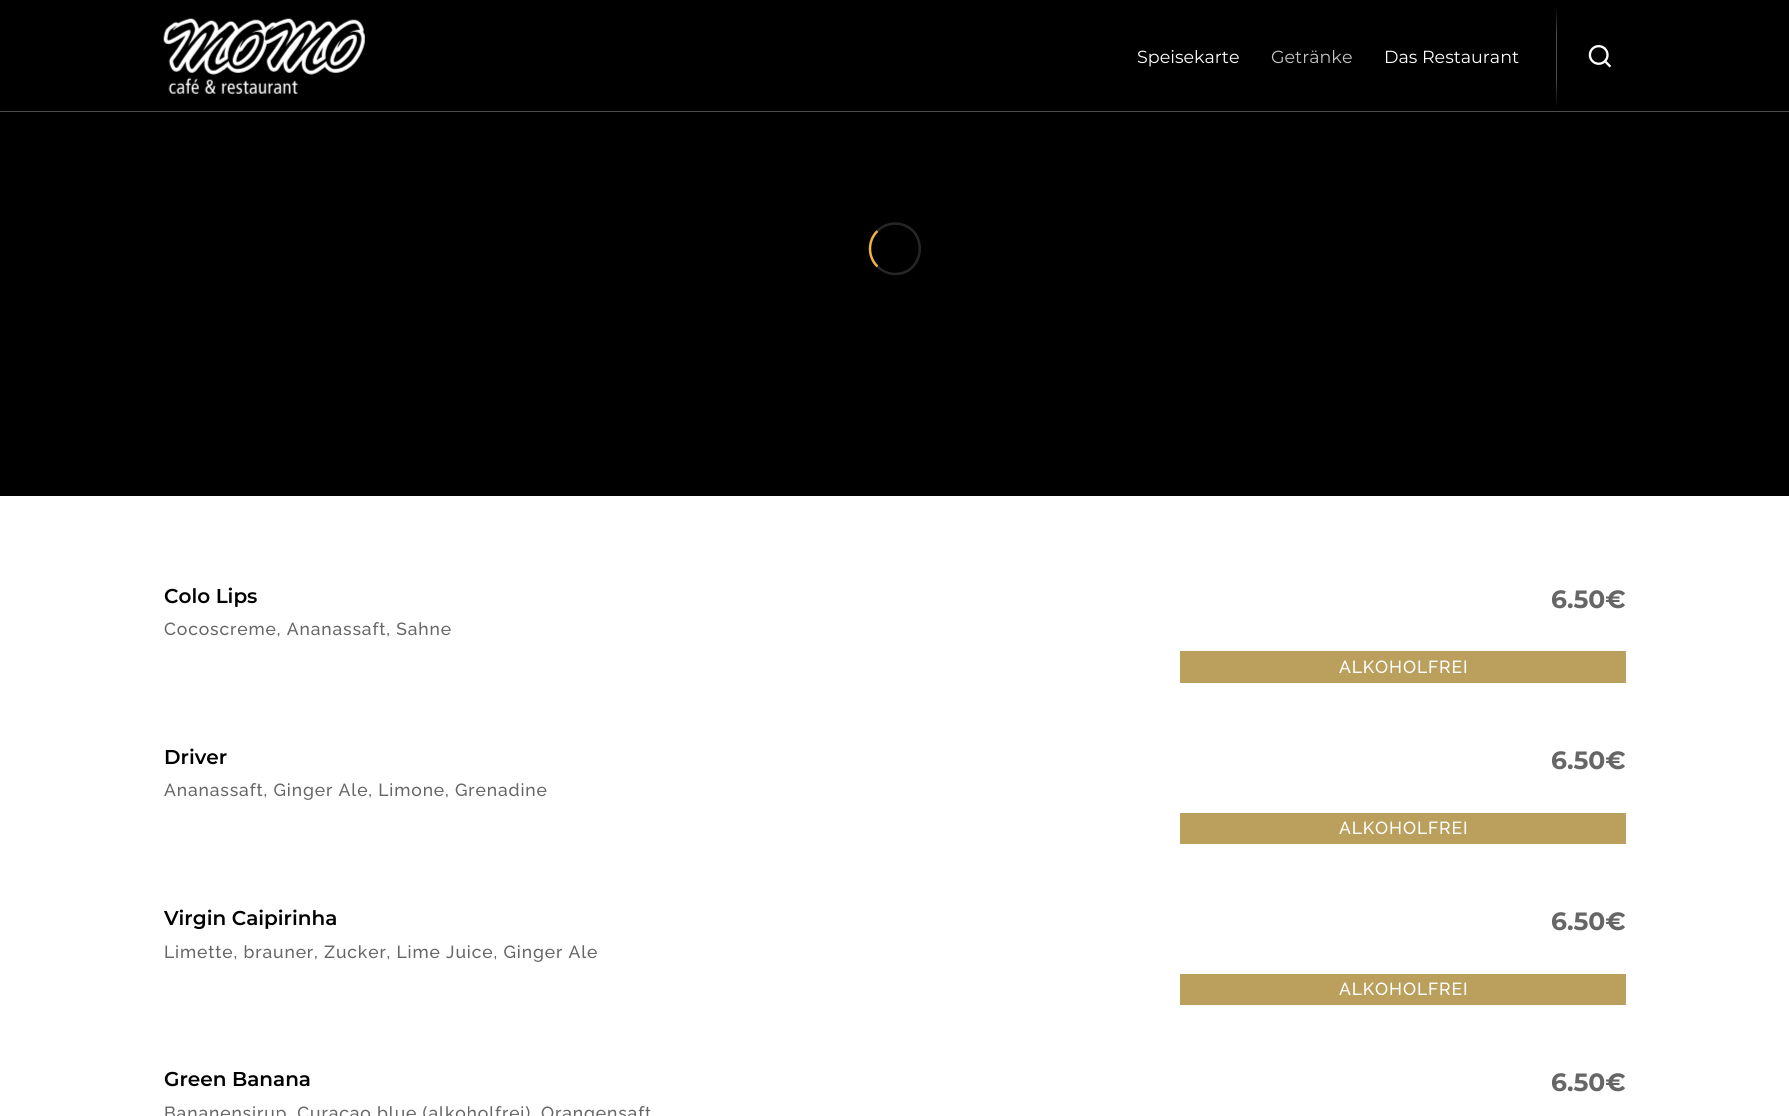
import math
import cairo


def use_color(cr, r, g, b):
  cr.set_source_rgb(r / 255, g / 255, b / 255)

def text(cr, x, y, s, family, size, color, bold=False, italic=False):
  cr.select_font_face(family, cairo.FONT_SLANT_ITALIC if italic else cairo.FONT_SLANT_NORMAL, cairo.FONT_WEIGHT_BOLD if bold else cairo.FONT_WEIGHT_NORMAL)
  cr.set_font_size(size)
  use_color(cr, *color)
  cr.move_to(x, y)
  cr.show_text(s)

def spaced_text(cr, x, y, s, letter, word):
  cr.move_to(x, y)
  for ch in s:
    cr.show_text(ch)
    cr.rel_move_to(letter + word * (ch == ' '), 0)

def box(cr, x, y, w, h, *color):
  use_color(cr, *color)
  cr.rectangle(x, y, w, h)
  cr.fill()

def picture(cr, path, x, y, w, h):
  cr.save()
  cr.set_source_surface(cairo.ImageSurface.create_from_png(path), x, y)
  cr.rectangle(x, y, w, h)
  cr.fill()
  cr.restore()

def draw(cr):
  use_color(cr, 255, 255, 255)
  cr.paint()
  box(cr, 0, 0, 1789, 496, 0, 0, 0)
  cr.new_path()
  cr.move_to(877.5, 231)
  cr.curve_to(883, 225, 892, 222.5, 900, 224)
  cr.curve_to(929, 230, 925, 274, 895, 274)
  cr.curve_to(888.5, 274, 882, 271, 877.5, 266.5)
  use_color(cr, 38, 38, 38)
  cr.set_line_width(2.5)
  cr.stroke()
  cr.new_path()
  cr.move_to(877.5, 266.5)
  cr.curve_to(867.5, 257, 867.5, 240.5, 877.5, 231)
  use_color(cr, 241, 177, 68)
  cr.stroke()
  box(cr, 0, 111, 1789, 1, 77, 77, 77)
  picture(cr, "img_01.png", 163, 18, 202, 76)
  gradient = cairo.LinearGradient(1557, 0, 1557, 113)
  gradient.add_color_stop_rgba(0.05, 1, 1, 1, 0)
  gradient.add_color_stop_rgba(0.3, 1, 1, 1, 0.3)
  gradient.add_color_stop_rgba(0.7, 1, 1, 1, 0.3)
  gradient.add_color_stop_rgba(0.95, 1, 1, 1, 0)
  cr.set_source(gradient)
  cr.rectangle(1556, 0, 1, 113)
  cr.fill()
  picture(cr, "img_02.png", 1588, 45, 24, 23)
  box(cr, 1180, 651, 446, 32, 187, 159, 93)
  box(cr, 1180, 813, 446, 31, 187, 159, 93)
  box(cr, 1180, 974, 446, 31, 187, 159, 93)
  text(cr, 1137, 63, "Speisekarte", "Montserrat", 17.5, (255, 255, 255))
  text(cr, 1271, 63, "Getränke", "Montserrat", 17.5, (196, 196, 196))
  text(cr, 1384, 63, "Das Restaurant", "Montserrat", 17.5, (255, 255, 255))
  text(cr, 164, 603, "Colo Lips", "Montserrat SemiBold", 20, (0, 0, 0))
  cr.select_font_face("Raleway Medium")
  cr.set_font_size(17.5)
  use_color(cr, 102, 102, 102)
  spaced_text(cr, 164, 635, "Cocoscreme, Ananassaft, Sahne", 0.88, 0)
  text(cr, 1551, 608, "6.50€", "Montserrat", 25, (102, 102, 102), bold=True)
  cr.select_font_face("Raleway Medium")
  cr.set_font_size(17.5)
  use_color(cr, 255, 255, 255)
  spaced_text(cr, 1339, 673, "ALKOHOLFREI", 0.88, 0)
  text(cr, 164, 764, "Driver", "Montserrat SemiBold", 20, (0, 0, 0))
  cr.select_font_face("Raleway Medium")
  cr.set_font_size(17.5)
  use_color(cr, 102, 102, 102)
  spaced_text(cr, 164, 796, "Ananassaft, Ginger Ale, Limone, Grenadine", 0.88, 0)
  text(cr, 1551, 769, "6.50€", "Montserrat", 25, (102, 102, 102), bold=True)
  cr.select_font_face("Raleway Medium")
  cr.set_font_size(17.5)
  use_color(cr, 255, 255, 255)
  spaced_text(cr, 1339, 834, "ALKOHOLFREI", 0.88, 0)
  text(cr, 164, 925, "Virgin Caipirinha", "Montserrat SemiBold", 20, (0, 0, 0))
  cr.select_font_face("Raleway Medium")
  cr.set_font_size(17.5)
  use_color(cr, 102, 102, 102)
  spaced_text(cr, 164, 958, "Limette, brauner, Zucker, Lime Juice, Ginger Ale", 0.88, 0)
  text(cr, 1551, 930, "6.50€", "Montserrat", 25, (102, 102, 102), bold=True)
  cr.select_font_face("Raleway Medium")
  cr.set_font_size(17.5)
  use_color(cr, 255, 255, 255)
  spaced_text(cr, 1339, 995, "ALKOHOLFREI", 0.88, 0)
  text(cr, 164, 1086, "Green Banana", "Montserrat SemiBold", 20, (0, 0, 0))
  cr.select_font_face("Raleway Medium")
  cr.set_font_size(17.5)
  use_color(cr, 102, 102, 102)
  spaced_text(cr, 164, 1119, "Bananensirup, Curacao blue (alkoholfrei), Orangensaft", 0.88, 0)
  text(cr, 1551, 1091, "6.50€", "Montserrat", 25, (102, 102, 102), bold=True)


surface = cairo.ImageSurface(cairo.FORMAT_RGB24, 1789, 1116)
cr = cairo.Context(surface)
options = cairo.FontOptions()
options.set_hint_metrics(cairo.HINT_METRICS_OFF)
options.set_hint_style(cairo.HINT_STYLE_NONE)
cr.set_font_options(options)
cr.set_miter_limit(4)
draw(cr)
surface.write_to_png("out.png")
